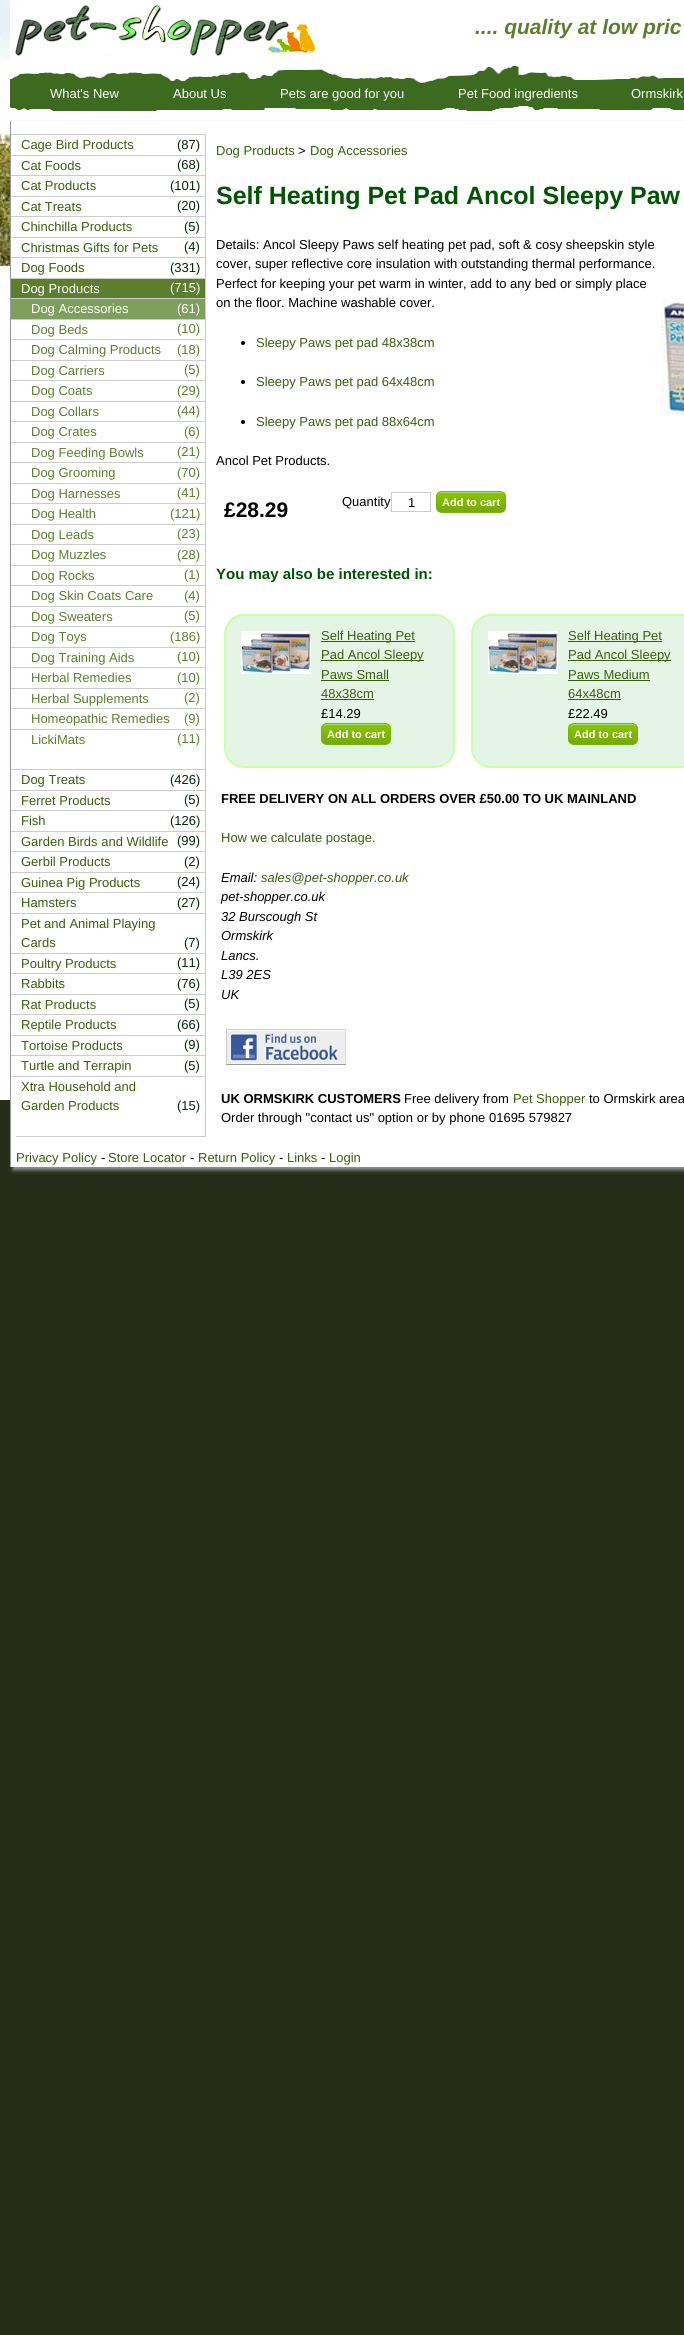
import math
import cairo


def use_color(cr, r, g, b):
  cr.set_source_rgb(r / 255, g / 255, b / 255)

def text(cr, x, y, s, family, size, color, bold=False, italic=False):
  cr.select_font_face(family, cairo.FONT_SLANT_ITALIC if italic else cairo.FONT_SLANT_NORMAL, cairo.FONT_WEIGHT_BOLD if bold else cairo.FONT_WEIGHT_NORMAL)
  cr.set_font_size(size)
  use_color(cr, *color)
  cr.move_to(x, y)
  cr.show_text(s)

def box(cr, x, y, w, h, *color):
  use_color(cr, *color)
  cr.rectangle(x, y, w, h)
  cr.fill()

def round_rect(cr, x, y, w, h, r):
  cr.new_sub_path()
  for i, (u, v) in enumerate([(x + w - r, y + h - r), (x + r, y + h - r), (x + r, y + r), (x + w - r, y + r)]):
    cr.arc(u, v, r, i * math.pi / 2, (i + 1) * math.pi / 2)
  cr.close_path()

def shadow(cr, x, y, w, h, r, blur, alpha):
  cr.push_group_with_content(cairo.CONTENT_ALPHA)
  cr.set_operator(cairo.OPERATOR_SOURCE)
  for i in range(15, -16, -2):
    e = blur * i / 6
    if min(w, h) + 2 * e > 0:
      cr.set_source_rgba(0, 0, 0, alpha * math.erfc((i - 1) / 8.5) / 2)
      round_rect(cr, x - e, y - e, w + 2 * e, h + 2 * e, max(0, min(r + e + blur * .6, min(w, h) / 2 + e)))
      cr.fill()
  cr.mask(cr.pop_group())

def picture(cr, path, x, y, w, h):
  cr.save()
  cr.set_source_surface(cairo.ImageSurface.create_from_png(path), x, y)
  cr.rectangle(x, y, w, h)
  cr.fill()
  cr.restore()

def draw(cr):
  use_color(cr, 39, 44, 24)
  cr.paint()
  picture(cr, "img_01.png", 0, 0, 684, 1100)
  box(cr, 10, 0, 674, 66, 255, 255, 255)
  picture(cr, "img_02.png", 15, 5, 300, 51)
  picture(cr, "img_03.png", 10, 66, 674, 45)
  use_color(cr, 153, 153, 153)
  shadow(cr, 13, 124, 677, 1046, 0, 2, 1)
  box(cr, 11, 121, 673, 1046, 255, 255, 255)
  box(cr, 10, 121, 1, 1046, 153, 153, 153)
  box(cr, 205, 134, 1, 1003, 204, 204, 204)
  box(cr, 16, 1136, 190, 1, 204, 204, 204)
  box(cr, 11, 134, 194, 1, 204, 204, 204)
  box(cr, 11, 155, 194, 1, 204, 204, 204)
  box(cr, 11, 175, 194, 1, 204, 204, 204)
  box(cr, 11, 196, 194, 1, 204, 204, 204)
  box(cr, 11, 216, 194, 1, 204, 204, 204)
  box(cr, 11, 237, 194, 1, 204, 204, 204)
  box(cr, 11, 257, 194, 1, 204, 204, 204)
  box(cr, 11, 279, 194, 19, 92, 127, 45)
  box(cr, 11, 278, 194, 1, 204, 204, 204)
  box(cr, 11, 299, 194, 20, 125, 160, 93)
  box(cr, 11, 298, 194, 1, 204, 204, 204)
  box(cr, 11, 319, 194, 1, 204, 204, 204)
  box(cr, 11, 339, 194, 1, 204, 204, 204)
  box(cr, 11, 360, 194, 1, 204, 204, 204)
  box(cr, 11, 380, 194, 1, 204, 204, 204)
  box(cr, 11, 401, 194, 1, 204, 204, 204)
  box(cr, 11, 421, 194, 1, 204, 204, 204)
  box(cr, 11, 442, 194, 1, 204, 204, 204)
  box(cr, 11, 462, 194, 1, 204, 204, 204)
  box(cr, 11, 483, 194, 1, 204, 204, 204)
  box(cr, 11, 503, 194, 1, 204, 204, 204)
  box(cr, 11, 524, 194, 1, 204, 204, 204)
  box(cr, 11, 544, 194, 1, 204, 204, 204)
  box(cr, 11, 565, 194, 1, 204, 204, 204)
  box(cr, 11, 585, 194, 1, 204, 204, 204)
  box(cr, 11, 606, 194, 1, 204, 204, 204)
  box(cr, 11, 626, 194, 1, 204, 204, 204)
  box(cr, 11, 647, 194, 1, 204, 204, 204)
  box(cr, 11, 667, 194, 1, 204, 204, 204)
  box(cr, 11, 688, 194, 1, 204, 204, 204)
  box(cr, 11, 708, 194, 1, 204, 204, 204)
  box(cr, 11, 729, 194, 1, 204, 204, 204)
  box(cr, 11, 769, 194, 1, 204, 204, 204)
  box(cr, 11, 790, 194, 1, 204, 204, 204)
  box(cr, 11, 810, 194, 1, 204, 204, 204)
  box(cr, 11, 831, 194, 1, 204, 204, 204)
  box(cr, 11, 851, 194, 1, 204, 204, 204)
  box(cr, 11, 872, 194, 1, 204, 204, 204)
  box(cr, 11, 892, 194, 1, 204, 204, 204)
  box(cr, 11, 913, 194, 1, 204, 204, 204)
  box(cr, 11, 953, 194, 1, 204, 204, 204)
  box(cr, 11, 973, 194, 1, 204, 204, 204)
  box(cr, 11, 994, 194, 1, 204, 204, 204)
  box(cr, 11, 1014, 194, 1, 204, 204, 204)
  box(cr, 11, 1035, 194, 1, 204, 204, 204)
  box(cr, 11, 1055, 194, 1, 204, 204, 204)
  box(cr, 11, 1076, 194, 1, 204, 204, 204)
  use_color(cr, 0, 0, 0)
  cr.arc(243, 343, 2, 0, 2 * math.pi)
  cr.fill()
  cr.arc(243, 382, 2, 0, 2 * math.pi)
  cr.fill()
  cr.arc(243, 422, 2, 0, 2 * math.pi)
  cr.fill()
  picture(cr, "img_04.png", 661, 296, 23, 120)
  cr.rectangle(391.5, 492.5, 39, 19)
  use_color(cr, 204, 204, 204)
  cr.set_line_width(1)
  cr.stroke()
  cr.save()
  round_rect(cr, 436, 491, 70, 22, 6)
  cr.clip()
  gradient = cairo.LinearGradient(437, 492, 437, 512)
  gradient.add_color_stop_rgba(0.05, 0.537, 0.769, 0.012, 1)
  gradient.add_color_stop_rgba(1, 0.467, 0.659, 0.035, 1)
  cr.set_source(gradient)
  cr.rectangle(436, 492, 70, 20)
  cr.fill()
  cr.restore()
  use_color(cr, 164, 226, 113)
  cr.new_path()
  cr.move_to(442, 493)
  cr.line_to(500, 493)
  cr.curve_to(503, 493, 505, 495, 505, 498)
  cr.curve_to(505, 490, 496, 492, 490, 492)
  cr.line_to(452, 492)
  cr.curve_to(446, 492, 437, 490, 437, 498)
  cr.curve_to(437, 495, 439, 493, 442, 493)
  cr.close_path()
  cr.fill()
  round_rect(cr, 436.5, 491.5, 69, 21, 5.5)
  use_color(cr, 116, 184, 7)
  cr.stroke()
  use_color(cr, 229, 245, 229)
  round_rect(cr, 225, 615, 229, 152, 19)
  cr.fill_preserve()
  use_color(cr, 203, 255, 164)
  cr.set_line_width(2)
  cr.stroke()
  picture(cr, "img_05.png", 241, 631, 70, 43)
  box(cr, 321, 641, 94, 1, 58, 95, 11)
  box(cr, 321, 660, 103, 1, 58, 95, 11)
  box(cr, 321, 680, 68, 1, 58, 95, 11)
  box(cr, 321, 699, 53, 1, 58, 95, 11)
  cr.save()
  round_rect(cr, 321, 723, 70, 22, 6)
  cr.clip()
  gradient = cairo.LinearGradient(322, 724, 322, 744)
  gradient.add_color_stop_rgba(0.05, 0.537, 0.769, 0.012, 1)
  gradient.add_color_stop_rgba(1, 0.467, 0.659, 0.035, 1)
  cr.set_source(gradient)
  cr.rectangle(321, 724, 70, 20)
  cr.fill()
  cr.restore()
  use_color(cr, 164, 226, 113)
  cr.new_path()
  cr.move_to(327, 725)
  cr.line_to(385, 725)
  cr.curve_to(388, 725, 390, 727, 390, 730)
  cr.curve_to(390, 722, 381, 724, 375, 724)
  cr.line_to(337, 724)
  cr.curve_to(331, 724, 322, 722, 322, 730)
  cr.curve_to(322, 727, 324, 725, 327, 725)
  cr.close_path()
  cr.fill()
  round_rect(cr, 321.5, 723.5, 69, 21, 5.5)
  use_color(cr, 116, 184, 7)
  cr.set_line_width(1)
  cr.stroke()
  use_color(cr, 229, 245, 229)
  round_rect(cr, 472, 615, 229, 152, 19)
  cr.fill_preserve()
  use_color(cr, 203, 255, 164)
  cr.set_line_width(2)
  cr.stroke()
  picture(cr, "img_05.png", 488, 631, 70, 43)
  box(cr, 568, 641, 94, 1, 58, 95, 11)
  box(cr, 568, 660, 103, 1, 58, 95, 11)
  box(cr, 568, 680, 82, 1, 58, 95, 11)
  box(cr, 568, 699, 53, 1, 58, 95, 11)
  cr.save()
  round_rect(cr, 568, 723, 70, 22, 6)
  cr.clip()
  gradient = cairo.LinearGradient(569, 724, 569, 744)
  gradient.add_color_stop_rgba(0.05, 0.537, 0.769, 0.012, 1)
  gradient.add_color_stop_rgba(1, 0.467, 0.659, 0.035, 1)
  cr.set_source(gradient)
  cr.rectangle(568, 724, 70, 20)
  cr.fill()
  cr.restore()
  use_color(cr, 164, 226, 113)
  cr.new_path()
  cr.move_to(574, 725)
  cr.line_to(632, 725)
  cr.curve_to(635, 725, 637, 727, 637, 730)
  cr.curve_to(637, 722, 628, 724, 622, 724)
  cr.line_to(584, 724)
  cr.curve_to(578, 724, 569, 722, 569, 730)
  cr.curve_to(569, 727, 571, 725, 574, 725)
  cr.close_path()
  cr.fill()
  round_rect(cr, 568.5, 723.5, 69, 21, 5.5)
  use_color(cr, 116, 184, 7)
  cr.set_line_width(1)
  cr.stroke()
  picture(cr, "img_06.png", 226, 1029, 120, 36)
  text(cr, 475, 34, ".... quality at low pric", "Liberation Sans", 21, (92, 127, 45), bold=True, italic=True)
  text(cr, 50, 98, "What's New", "Liberation Sans", 13, (255, 255, 255))
  text(cr, 173, 98, "About Us", "Liberation Sans", 13, (255, 255, 255))
  text(cr, 280, 98, "Pets are good for you", "Liberation Sans", 13, (255, 255, 255))
  text(cr, 458, 98, "Pet Food ingredients", "Liberation Sans", 13, (255, 255, 255))
  text(cr, 631, 98, "Ormskirk", "Liberation Sans", 13, (255, 255, 255))
  text(cr, 21, 149, "Cage Bird Products", "Liberation Sans", 13, (58, 95, 11))
  text(cr, 177, 149, "(87)", "Liberation Sans", 13, (0, 42, 4))
  text(cr, 21, 170, "Cat Foods", "Liberation Sans", 13, (58, 95, 11))
  text(cr, 177, 169, "(68)", "Liberation Sans", 13, (0, 42, 4))
  text(cr, 21, 190, "Cat Products", "Liberation Sans", 13, (58, 95, 11))
  text(cr, 170, 190, "(101)", "Liberation Sans", 13, (0, 42, 4))
  text(cr, 21, 211, "Cat Treats", "Liberation Sans", 13, (58, 95, 11))
  text(cr, 177, 210, "(20)", "Liberation Sans", 13, (0, 42, 4))
  text(cr, 21, 231, "Chinchilla Products", "Liberation Sans", 13, (58, 95, 11))
  text(cr, 184, 231, "(5)", "Liberation Sans", 13, (0, 42, 4))
  text(cr, 21, 252, "Christmas Gifts for Pets", "Liberation Sans", 13, (58, 95, 11))
  text(cr, 184, 251, "(4)", "Liberation Sans", 13, (0, 42, 4))
  text(cr, 21, 272, "Dog Foods", "Liberation Sans", 13, (58, 95, 11))
  text(cr, 170, 272, "(331)", "Liberation Sans", 13, (0, 42, 4))
  text(cr, 21, 293, "Dog Products", "Liberation Sans", 13, (255, 255, 255))
  text(cr, 170, 292, "(715)", "Liberation Sans", 13, (255, 255, 255))
  text(cr, 31, 313, "Dog Accessories", "Liberation Sans", 13, (255, 255, 255))
  text(cr, 177, 313, "(61)", "Liberation Sans", 13, (255, 255, 255))
  text(cr, 31, 334, "Dog Beds", "Liberation Sans", 13, (92, 127, 45))
  text(cr, 177, 333, "(10)", "Liberation Sans", 13, (92, 127, 45))
  text(cr, 31, 354, "Dog Calming Products", "Liberation Sans", 13, (92, 127, 45))
  text(cr, 177, 354, "(18)", "Liberation Sans", 13, (92, 127, 45))
  text(cr, 31, 375, "Dog Carriers", "Liberation Sans", 13, (92, 127, 45))
  text(cr, 184, 374, "(5)", "Liberation Sans", 13, (92, 127, 45))
  text(cr, 31, 395, "Dog Coats", "Liberation Sans", 13, (92, 127, 45))
  text(cr, 177, 395, "(29)", "Liberation Sans", 13, (92, 127, 45))
  text(cr, 31, 416, "Dog Collars", "Liberation Sans", 13, (92, 127, 45))
  text(cr, 177, 415, "(44)", "Liberation Sans", 13, (92, 127, 45))
  text(cr, 31, 436, "Dog Crates", "Liberation Sans", 13, (92, 127, 45))
  text(cr, 184, 436, "(6)", "Liberation Sans", 13, (92, 127, 45))
  text(cr, 31, 457, "Dog Feeding Bowls", "Liberation Sans", 13, (92, 127, 45))
  text(cr, 177, 456, "(21)", "Liberation Sans", 13, (92, 127, 45))
  text(cr, 31, 477, "Dog Grooming", "Liberation Sans", 13, (92, 127, 45))
  text(cr, 177, 477, "(70)", "Liberation Sans", 13, (92, 127, 45))
  text(cr, 31, 498, "Dog Harnesses", "Liberation Sans", 13, (92, 127, 45))
  text(cr, 177, 497, "(41)", "Liberation Sans", 13, (92, 127, 45))
  text(cr, 31, 518, "Dog Health", "Liberation Sans", 13, (92, 127, 45))
  text(cr, 170, 518, "(121)", "Liberation Sans", 13, (92, 127, 45))
  text(cr, 31, 539, "Dog Leads", "Liberation Sans", 13, (92, 127, 45))
  text(cr, 177, 538, "(23)", "Liberation Sans", 13, (92, 127, 45))
  text(cr, 31, 559, "Dog Muzzles", "Liberation Sans", 13, (92, 127, 45))
  text(cr, 177, 559, "(28)", "Liberation Sans", 13, (92, 127, 45))
  text(cr, 31, 580, "Dog Rocks", "Liberation Sans", 13, (92, 127, 45))
  text(cr, 184, 579, "(1)", "Liberation Sans", 13, (92, 127, 45))
  text(cr, 31, 600, "Dog Skin Coats Care", "Liberation Sans", 13, (92, 127, 45))
  text(cr, 184, 600, "(4)", "Liberation Sans", 13, (92, 127, 45))
  text(cr, 31, 621, "Dog Sweaters", "Liberation Sans", 13, (92, 127, 45))
  text(cr, 184, 620, "(5)", "Liberation Sans", 13, (92, 127, 45))
  text(cr, 31, 641, "Dog Toys", "Liberation Sans", 13, (92, 127, 45))
  text(cr, 170, 641, "(186)", "Liberation Sans", 13, (92, 127, 45))
  text(cr, 31, 662, "Dog Training Aids", "Liberation Sans", 13, (92, 127, 45))
  text(cr, 177, 661, "(10)", "Liberation Sans", 13, (92, 127, 45))
  text(cr, 31, 682, "Herbal Remedies", "Liberation Sans", 13, (92, 127, 45))
  text(cr, 177, 682, "(10)", "Liberation Sans", 13, (92, 127, 45))
  text(cr, 31, 703, "Herbal Supplements", "Liberation Sans", 13, (92, 127, 45))
  text(cr, 184, 702, "(2)", "Liberation Sans", 13, (92, 127, 45))
  text(cr, 31, 723, "Homeopathic Remedies", "Liberation Sans", 13, (92, 127, 45))
  text(cr, 184, 723, "(9)", "Liberation Sans", 13, (92, 127, 45))
  text(cr, 31, 744, "LickiMats", "Liberation Sans", 13, (92, 127, 45))
  text(cr, 177, 743, "(11)", "Liberation Sans", 13, (92, 127, 45))
  text(cr, 21, 784, "Dog Treats", "Liberation Sans", 13, (58, 95, 11))
  text(cr, 170, 784, "(426)", "Liberation Sans", 13, (0, 42, 4))
  text(cr, 21, 805, "Ferret Products", "Liberation Sans", 13, (58, 95, 11))
  text(cr, 184, 804, "(5)", "Liberation Sans", 13, (0, 42, 4))
  text(cr, 21, 825, "Fish", "Liberation Sans", 13, (58, 95, 11))
  text(cr, 170, 825, "(126)", "Liberation Sans", 13, (0, 42, 4))
  text(cr, 21, 846, "Garden Birds and Wildlife", "Liberation Sans", 13, (58, 95, 11))
  text(cr, 177, 845, "(99)", "Liberation Sans", 13, (0, 42, 4))
  text(cr, 21, 866, "Gerbil Products", "Liberation Sans", 13, (58, 95, 11))
  text(cr, 184, 866, "(2)", "Liberation Sans", 13, (0, 42, 4))
  text(cr, 21, 887, "Guinea Pig Products", "Liberation Sans", 13, (58, 95, 11))
  text(cr, 177, 886, "(24)", "Liberation Sans", 13, (0, 42, 4))
  text(cr, 21, 907, "Hamsters", "Liberation Sans", 13, (58, 95, 11))
  text(cr, 177, 907, "(27)", "Liberation Sans", 13, (0, 42, 4))
  text(cr, 21, 928, "Pet and Animal Playing", "Liberation Sans", 13, (58, 95, 11))
  text(cr, 21, 947, "Cards", "Liberation Sans", 13, (58, 95, 11))
  text(cr, 184, 947, "(7)", "Liberation Sans", 13, (0, 42, 4))
  text(cr, 21, 968, "Poultry Products", "Liberation Sans", 13, (58, 95, 11))
  text(cr, 177, 967, "(11)", "Liberation Sans", 13, (0, 42, 4))
  text(cr, 21, 988, "Rabbits", "Liberation Sans", 13, (58, 95, 11))
  text(cr, 177, 988, "(76)", "Liberation Sans", 13, (0, 42, 4))
  text(cr, 21, 1009, "Rat Products", "Liberation Sans", 13, (58, 95, 11))
  text(cr, 184, 1008, "(5)", "Liberation Sans", 13, (0, 42, 4))
  text(cr, 21, 1029, "Reptile Products", "Liberation Sans", 13, (58, 95, 11))
  text(cr, 177, 1029, "(66)", "Liberation Sans", 13, (0, 42, 4))
  text(cr, 21, 1050, "Tortoise Products", "Liberation Sans", 13, (58, 95, 11))
  text(cr, 184, 1049, "(9)", "Liberation Sans", 13, (0, 42, 4))
  text(cr, 21, 1070, "Turtle and Terrapin", "Liberation Sans", 13, (58, 95, 11))
  text(cr, 184, 1070, "(5)", "Liberation Sans", 13, (0, 42, 4))
  text(cr, 21, 1091, "Xtra Household and", "Liberation Sans", 13, (58, 95, 11))
  text(cr, 21, 1110, "Garden Products", "Liberation Sans", 13, (58, 95, 11))
  text(cr, 177, 1110, "(15)", "Liberation Sans", 13, (0, 42, 4))
  text(cr, 216, 155, "Dog Products", "Liberation Sans", 13, (58, 95, 11))
  text(cr, 298, 155, ">", "Liberation Sans", 13, (0, 0, 0))
  text(cr, 310, 155, "Dog Accessories", "Liberation Sans", 13, (58, 95, 11))
  text(cr, 216, 204, "Self Heating Pet Pad Ancol Sleepy Paw", "Liberation Sans", 25, (0, 85, 2), bold=True)
  text(cr, 216, 249, "Details: Ancol Sleepy Paws self heating pet pad, soft & cosy sheepskin style", "Liberation Sans", 13, (0, 0, 0))
  text(cr, 216, 268, "cover, super reflective core insulation with outstanding thermal performance.", "Liberation Sans", 13, (0, 0, 0))
  text(cr, 216, 288, "Perfect for keeping your pet warm in winter, add to any bed or simply place", "Liberation Sans", 13, (0, 0, 0))
  text(cr, 216, 307, "on the floor. Machine washable cover.", "Liberation Sans", 13, (0, 0, 0))
  text(cr, 256, 347, "Sleepy Paws pet pad 48x38cm", "Liberation Sans", 13, (58, 95, 11))
  text(cr, 256, 386, "Sleepy Paws pet pad 64x48cm", "Liberation Sans", 13, (58, 95, 11))
  text(cr, 256, 426, "Sleepy Paws pet pad 88x64cm", "Liberation Sans", 13, (58, 95, 11))
  text(cr, 216, 465, "Ancol Pet Products.", "Liberation Sans", 13, (0, 0, 0))
  text(cr, 224, 517, "£28.29", "Liberation Sans", 21, (0, 0, 0), bold=True)
  text(cr, 342, 506, "Quantity", "Liberation Sans", 13, (0, 0, 0))
  text(cr, 408, 507, "1", "Liberation Sans", 13, (0, 0, 0))
  text(cr, 442, 506, "Add to cart", "Liberation Sans", 11, (255, 255, 255), bold=True)
  text(cr, 216, 579, "You may also be interested in:", "Liberation Sans", 15, (0, 85, 2), bold=True)
  text(cr, 321, 640, "Self Heating Pet", "Liberation Sans", 13, (58, 95, 11))
  text(cr, 321, 659, "Pad Ancol Sleepy", "Liberation Sans", 13, (58, 95, 11))
  text(cr, 321, 679, "Paws Small", "Liberation Sans", 13, (58, 95, 11))
  text(cr, 321, 698, "48x38cm", "Liberation Sans", 13, (58, 95, 11))
  text(cr, 321, 718, "£14.29", "Liberation Sans", 13, (0, 0, 0))
  text(cr, 327, 738, "Add to cart", "Liberation Sans", 11, (255, 255, 255), bold=True)
  text(cr, 568, 640, "Self Heating Pet", "Liberation Sans", 13, (58, 95, 11))
  text(cr, 568, 659, "Pad Ancol Sleepy", "Liberation Sans", 13, (58, 95, 11))
  text(cr, 568, 679, "Paws Medium", "Liberation Sans", 13, (58, 95, 11))
  text(cr, 568, 698, "64x48cm", "Liberation Sans", 13, (58, 95, 11))
  text(cr, 568, 718, "£22.49", "Liberation Sans", 13, (0, 0, 0))
  text(cr, 574, 738, "Add to cart", "Liberation Sans", 11, (255, 255, 255), bold=True)
  text(cr, 221, 803, "FREE DELIVERY ON ALL ORDERS OVER £50.00 TO UK MAINLAND", "Liberation Sans", 13, (0, 0, 0), bold=True)
  text(cr, 221, 842, "How we calculate postage.", "Liberation Sans", 13, (58, 95, 11))
  text(cr, 221, 882, "Email:", "Liberation Sans", 13, (0, 0, 0), italic=True)
  text(cr, 261, 882, "sales@pet-shopper.co.uk", "Liberation Sans", 13, (58, 95, 11), italic=True)
  text(cr, 221, 901, "pet-shopper.co.uk", "Liberation Sans", 13, (0, 0, 0), italic=True)
  text(cr, 221, 921, "32 Burscough St", "Liberation Sans", 13, (0, 0, 0), italic=True)
  text(cr, 221, 940, "Ormskirk", "Liberation Sans", 13, (0, 0, 0), italic=True)
  text(cr, 221, 960, "Lancs.", "Liberation Sans", 13, (0, 0, 0), italic=True)
  text(cr, 221, 979, "L39 2ES", "Liberation Sans", 13, (0, 0, 0), italic=True)
  text(cr, 221, 999, "UK", "Liberation Sans", 13, (0, 0, 0), italic=True)
  text(cr, 221, 1103, "UK ORMSKIRK CUSTOMERS", "Liberation Sans", 13, (0, 0, 0), bold=True)
  text(cr, 404, 1103, "Free delivery from", "Liberation Sans", 13, (0, 0, 0))
  text(cr, 513, 1103, "Pet Shopper", "Liberation Sans", 13, (58, 95, 11))
  text(cr, 589, 1103, "to Ormskirk area", "Liberation Sans", 13, (0, 0, 0))
  text(cr, 221, 1122, "Order through \"contact us\" option or by phone 01695 579827", "Liberation Sans", 13, (0, 0, 0))
  text(cr, 16, 1162, "Privacy Policy", "Liberation Sans", 13, (58, 95, 11))
  text(cr, 101, 1162, "-", "Liberation Sans", 13, (0, 0, 0))
  text(cr, 108, 1162, "Store Locator", "Liberation Sans", 13, (58, 95, 11))
  text(cr, 190, 1162, "-", "Liberation Sans", 13, (0, 0, 0))
  text(cr, 198, 1162, "Return Policy", "Liberation Sans", 13, (58, 95, 11))
  text(cr, 279, 1162, "-", "Liberation Sans", 13, (0, 0, 0))
  text(cr, 287, 1162, "Links", "Liberation Sans", 13, (58, 95, 11))
  text(cr, 321, 1162, "-", "Liberation Sans", 13, (0, 0, 0))
  text(cr, 329, 1162, "Login", "Liberation Sans", 13, (58, 95, 11))


surface = cairo.ImageSurface(cairo.FORMAT_RGB24, 684, 2335)
cr = cairo.Context(surface)
options = cairo.FontOptions()
options.set_hint_metrics(cairo.HINT_METRICS_OFF)
options.set_hint_style(cairo.HINT_STYLE_NONE)
cr.set_font_options(options)
cr.set_miter_limit(4)
draw(cr)
surface.write_to_png("out.png")
